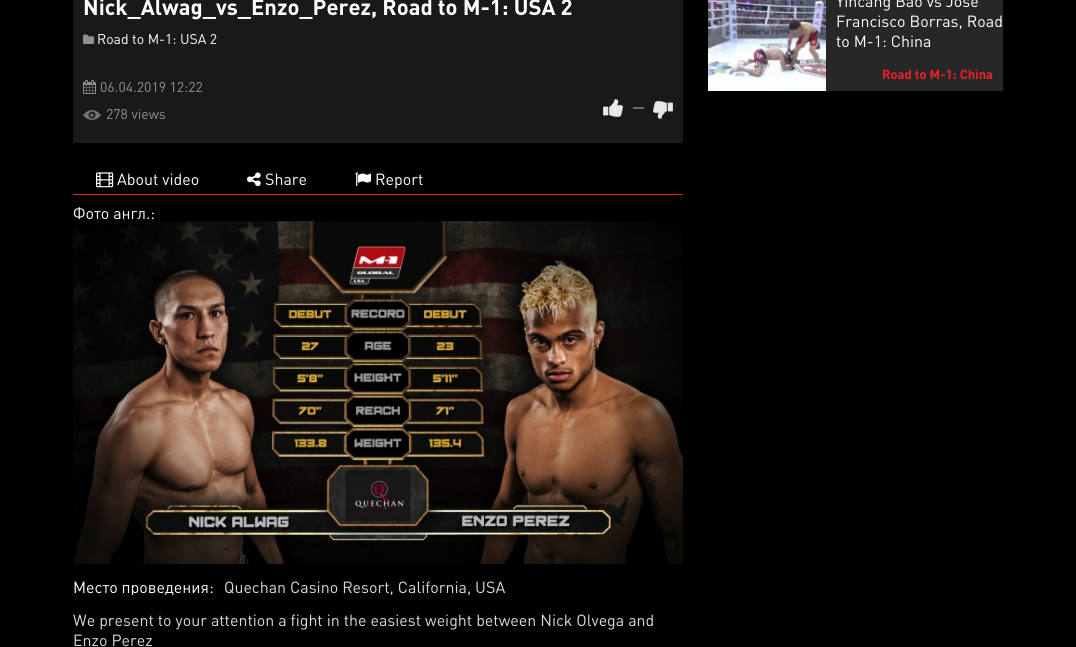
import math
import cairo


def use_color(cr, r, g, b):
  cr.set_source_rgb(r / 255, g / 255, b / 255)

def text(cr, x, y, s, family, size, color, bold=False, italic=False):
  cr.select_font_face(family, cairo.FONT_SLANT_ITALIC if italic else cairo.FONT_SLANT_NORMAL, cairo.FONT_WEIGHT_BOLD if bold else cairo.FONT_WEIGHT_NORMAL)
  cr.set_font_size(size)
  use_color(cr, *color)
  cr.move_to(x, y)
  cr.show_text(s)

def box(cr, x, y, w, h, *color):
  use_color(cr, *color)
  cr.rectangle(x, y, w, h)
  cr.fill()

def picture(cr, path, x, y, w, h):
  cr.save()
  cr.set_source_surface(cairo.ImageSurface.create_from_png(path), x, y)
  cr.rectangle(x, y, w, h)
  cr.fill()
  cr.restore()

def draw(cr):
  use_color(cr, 0, 0, 0)
  cr.paint()
  box(cr, 73, 0, 610, 143, 25, 25, 25)
  picture(cr, "img_01.png", 83, 34, 12, 10)
  picture(cr, "img_02.png", 83, 80, 13, 14)
  picture(cr, "img_03.png", 83, 110, 18, 10)
  picture(cr, "img_04.png", 603, 99, 20, 18)
  picture(cr, "img_05.png", 653, 101, 20, 18)
  box(cr, 73, 194, 610, 1, 241, 31, 37)
  picture(cr, "img_06.png", 96, 172, 18, 16)
  picture(cr, "img_07.png", 247, 172, 14, 15)
  picture(cr, "img_08.png", 355, 172, 16, 15)
  picture(cr, "img_09.png", 73, 221, 610, 343)
  box(cr, 826, 0, 177, 91, 39, 39, 39)
  picture(cr, "img_10.png", 708, 0, 118, 91)
  text(cr, 83, 15, "Nick_Alwag_vs_Enzo_Perez, Road to M-1: USA 2", "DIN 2", 22, (255, 255, 255), bold=True)
  text(cr, 97, 44, "Road to M-1: USA 2", "DIN", 14, (255, 255, 255))
  text(cr, 100, 92, "06.04.2019 12:22", "DIN", 14, (143, 143, 143))
  text(cr, 106, 119, "278 views", "DIN", 14, (143, 143, 143))
  text(cr, 632, 112, "—", "DIN", 14, (143, 143, 143), bold=True)
  text(cr, 117, 185, "About video", "DIN", 16, (255, 255, 255))
  text(cr, 265, 185, "Share", "DIN", 16, (255, 255, 255))
  text(cr, 375, 185, "Report", "DIN", 16, (255, 255, 255))
  text(cr, 73, 219, "Фото англ.:", "DIN", 16, (255, 255, 255))
  cr.save()
  cr.rectangle(73, 579, 610, 16)
  cr.clip()
  text(cr, 73, 593, "Место проведения:", "DIN", 16, (255, 255, 255))
  cr.restore()
  text(cr, 224, 593, "Quechan Casino Resort, California, USA", "DIN", 16, (219, 219, 219))
  text(cr, 73, 626, "We present to your attention a fight in the easiest weight between Nick Olvega and", "DIN", 16, (219, 219, 219))
  text(cr, 73, 646, "Enzo Perez", "DIN", 16, (219, 219, 219))
  text(cr, 836, 7, "Yincang Bao vs Jose", "DIN", 16, (255, 255, 255))
  text(cr, 836, 27, "Francisco Borras, Road", "DIN", 16, (255, 255, 255))
  text(cr, 836, 47, "to M-1: China", "DIN", 16, (255, 255, 255))
  text(cr, 882, 79, "Road to M-1: China", "DIN 2", 13, (241, 31, 37), bold=True)


surface = cairo.ImageSurface(cairo.FORMAT_RGB24, 1076, 647)
cr = cairo.Context(surface)
options = cairo.FontOptions()
options.set_hint_metrics(cairo.HINT_METRICS_OFF)
options.set_hint_style(cairo.HINT_STYLE_NONE)
cr.set_font_options(options)
cr.set_miter_limit(4)
draw(cr)
surface.write_to_png("out.png")
